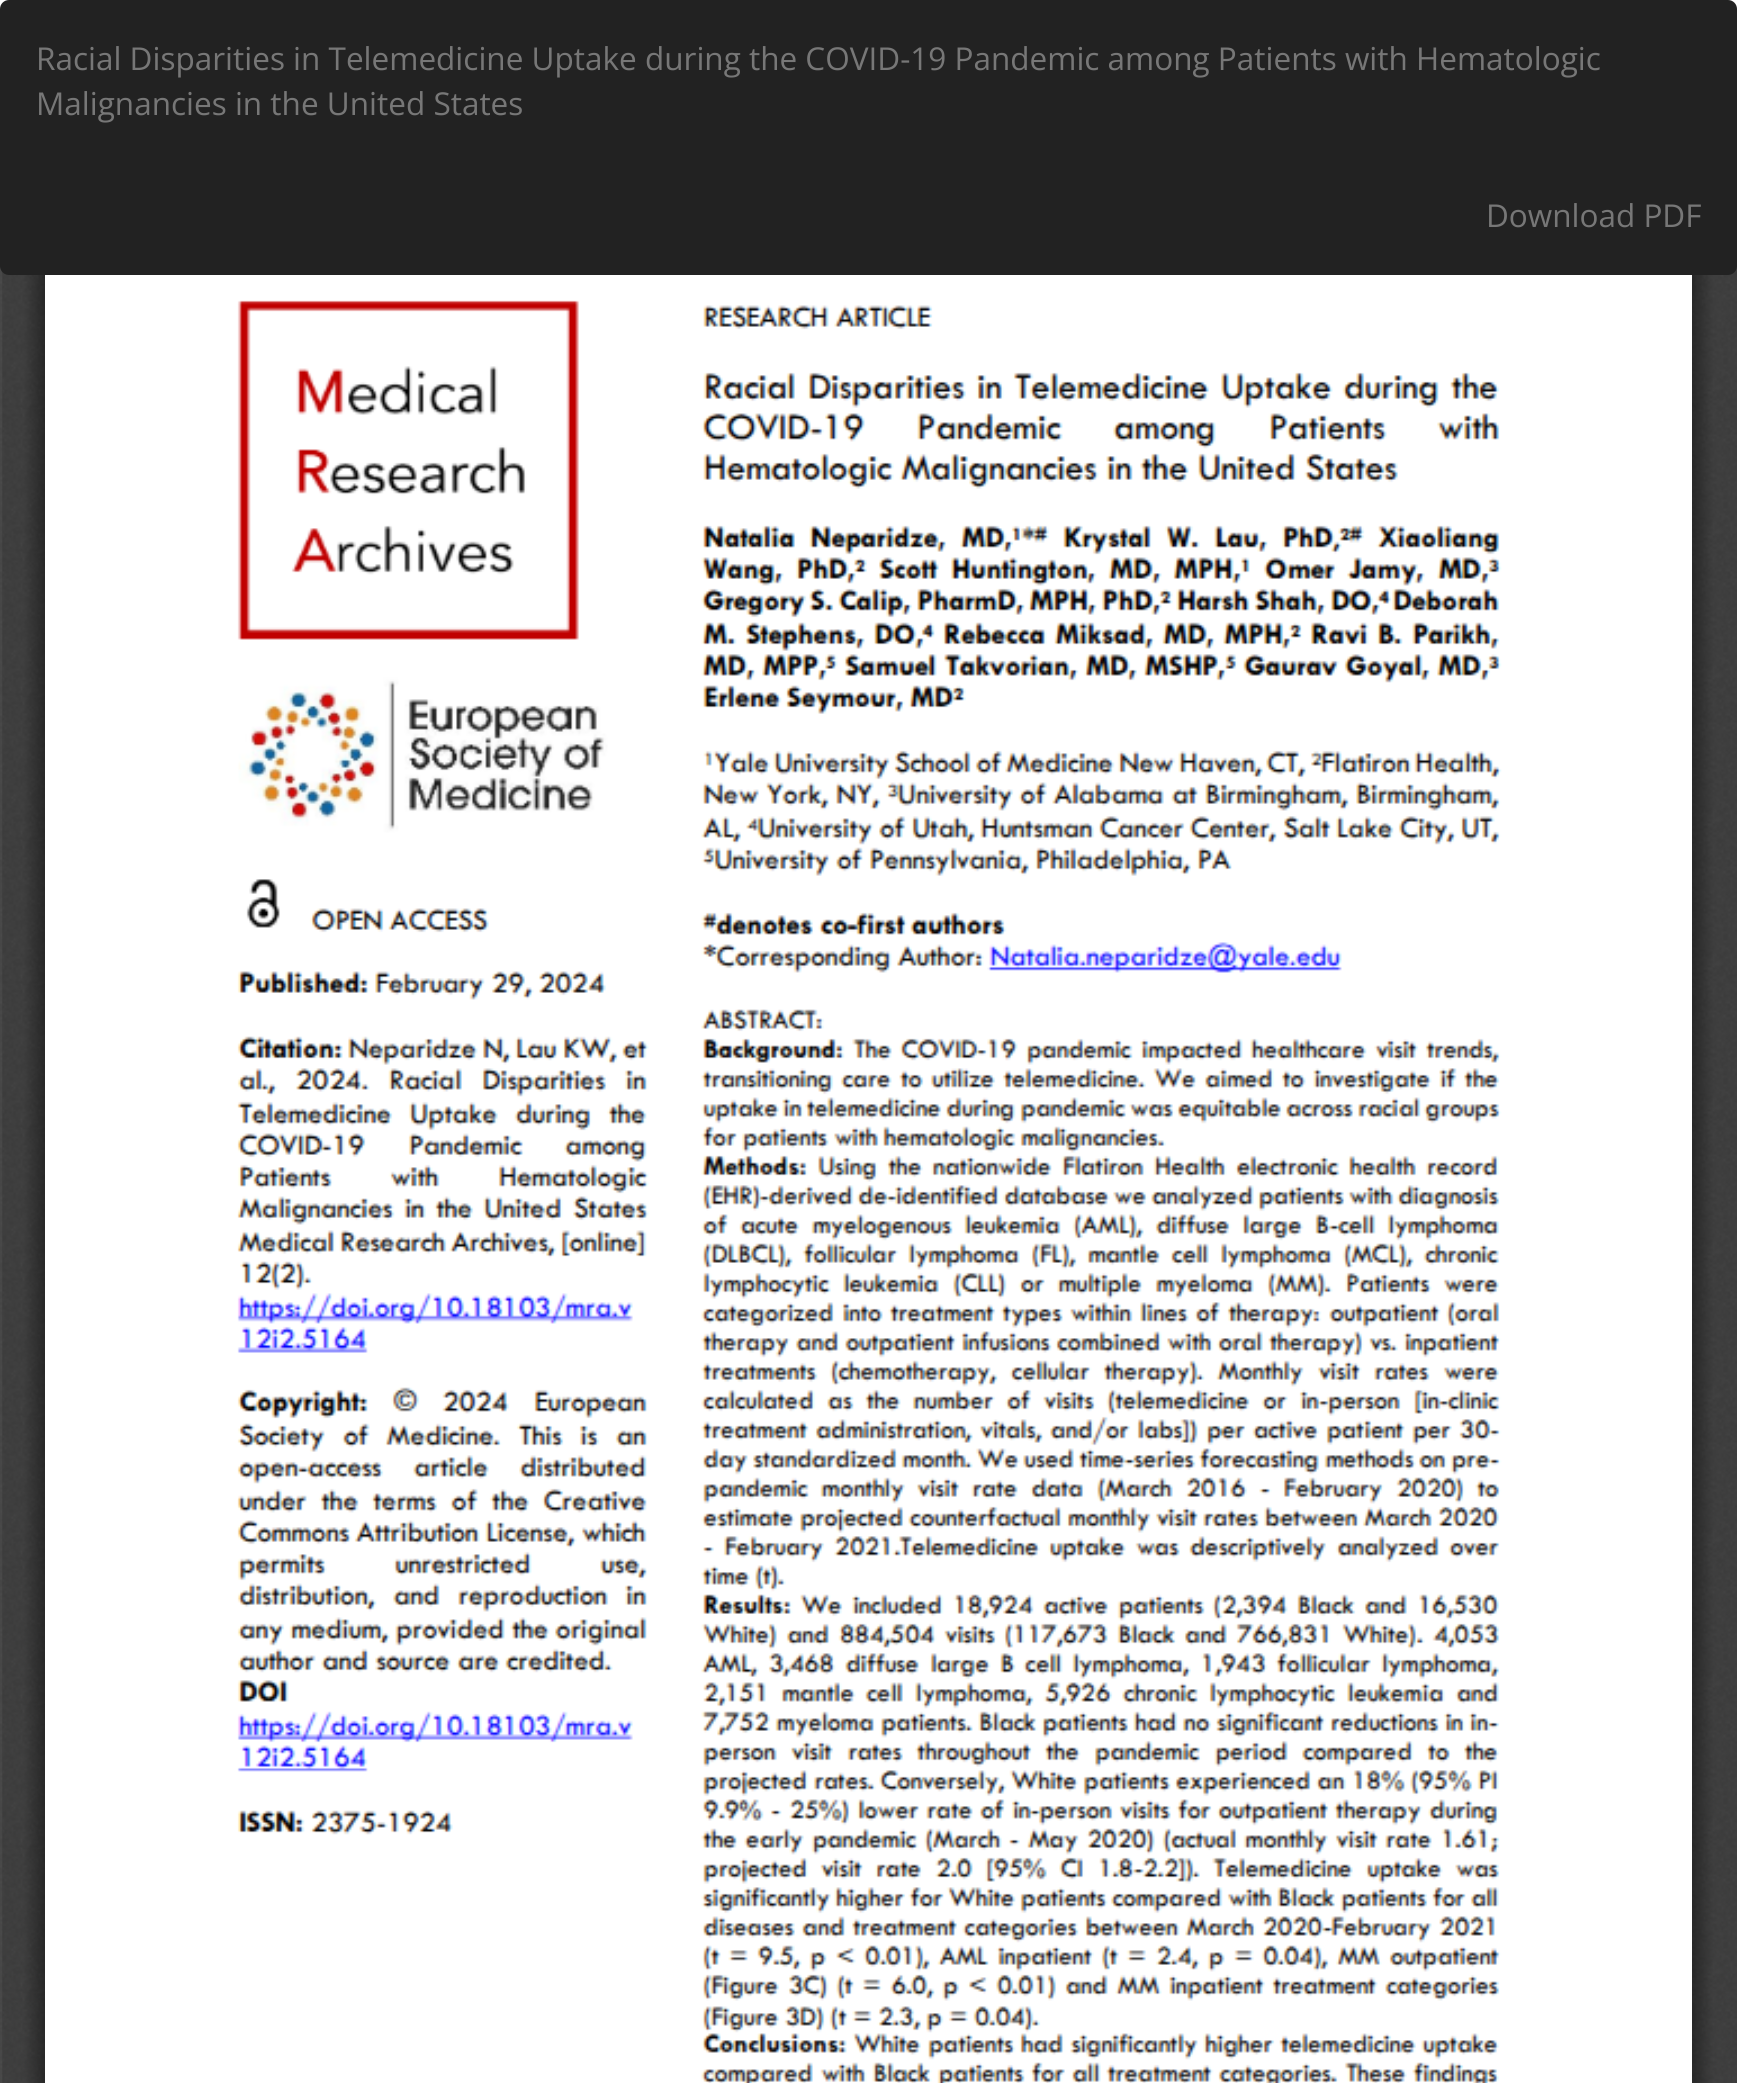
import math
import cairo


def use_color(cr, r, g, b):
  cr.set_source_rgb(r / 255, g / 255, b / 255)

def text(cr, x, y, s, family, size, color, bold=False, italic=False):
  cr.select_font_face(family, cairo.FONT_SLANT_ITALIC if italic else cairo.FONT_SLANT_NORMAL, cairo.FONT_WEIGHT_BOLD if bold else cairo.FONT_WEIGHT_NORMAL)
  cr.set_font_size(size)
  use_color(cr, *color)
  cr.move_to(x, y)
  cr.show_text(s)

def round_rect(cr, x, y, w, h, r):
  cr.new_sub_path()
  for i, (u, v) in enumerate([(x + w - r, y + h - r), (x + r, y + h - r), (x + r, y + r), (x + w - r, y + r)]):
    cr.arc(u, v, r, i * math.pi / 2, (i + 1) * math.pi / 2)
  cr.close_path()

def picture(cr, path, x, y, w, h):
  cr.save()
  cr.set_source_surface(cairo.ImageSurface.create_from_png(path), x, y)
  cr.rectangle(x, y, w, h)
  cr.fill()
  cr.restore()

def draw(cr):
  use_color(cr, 255, 255, 255)
  cr.paint()
  picture(cr, "img_01.png", 0, 266, 1737, 1817)
  use_color(cr, 34, 34, 34)
  round_rect(cr, 1, 1, 1735, 273, 8)
  cr.fill_preserve()
  cr.stroke()
  text(cr, 36, 70, "Racial Disparities in Telemedicine Uptake during the COVID-19 Pandemic among Patients with Hematologic", "Open Sans", 31.5, (119, 119, 119))
  text(cr, 36, 115, "Malignancies in the United States", "Open Sans", 31.5, (119, 119, 119))
  text(cr, 1486, 227, "Download PDF", "Open Sans", 31.5, (119, 119, 119))


surface = cairo.ImageSurface(cairo.FORMAT_RGB24, 1737, 2083)
cr = cairo.Context(surface)
options = cairo.FontOptions()
options.set_hint_metrics(cairo.HINT_METRICS_OFF)
options.set_hint_style(cairo.HINT_STYLE_NONE)
cr.set_font_options(options)
cr.set_miter_limit(4)
draw(cr)
surface.write_to_png("out.png")
